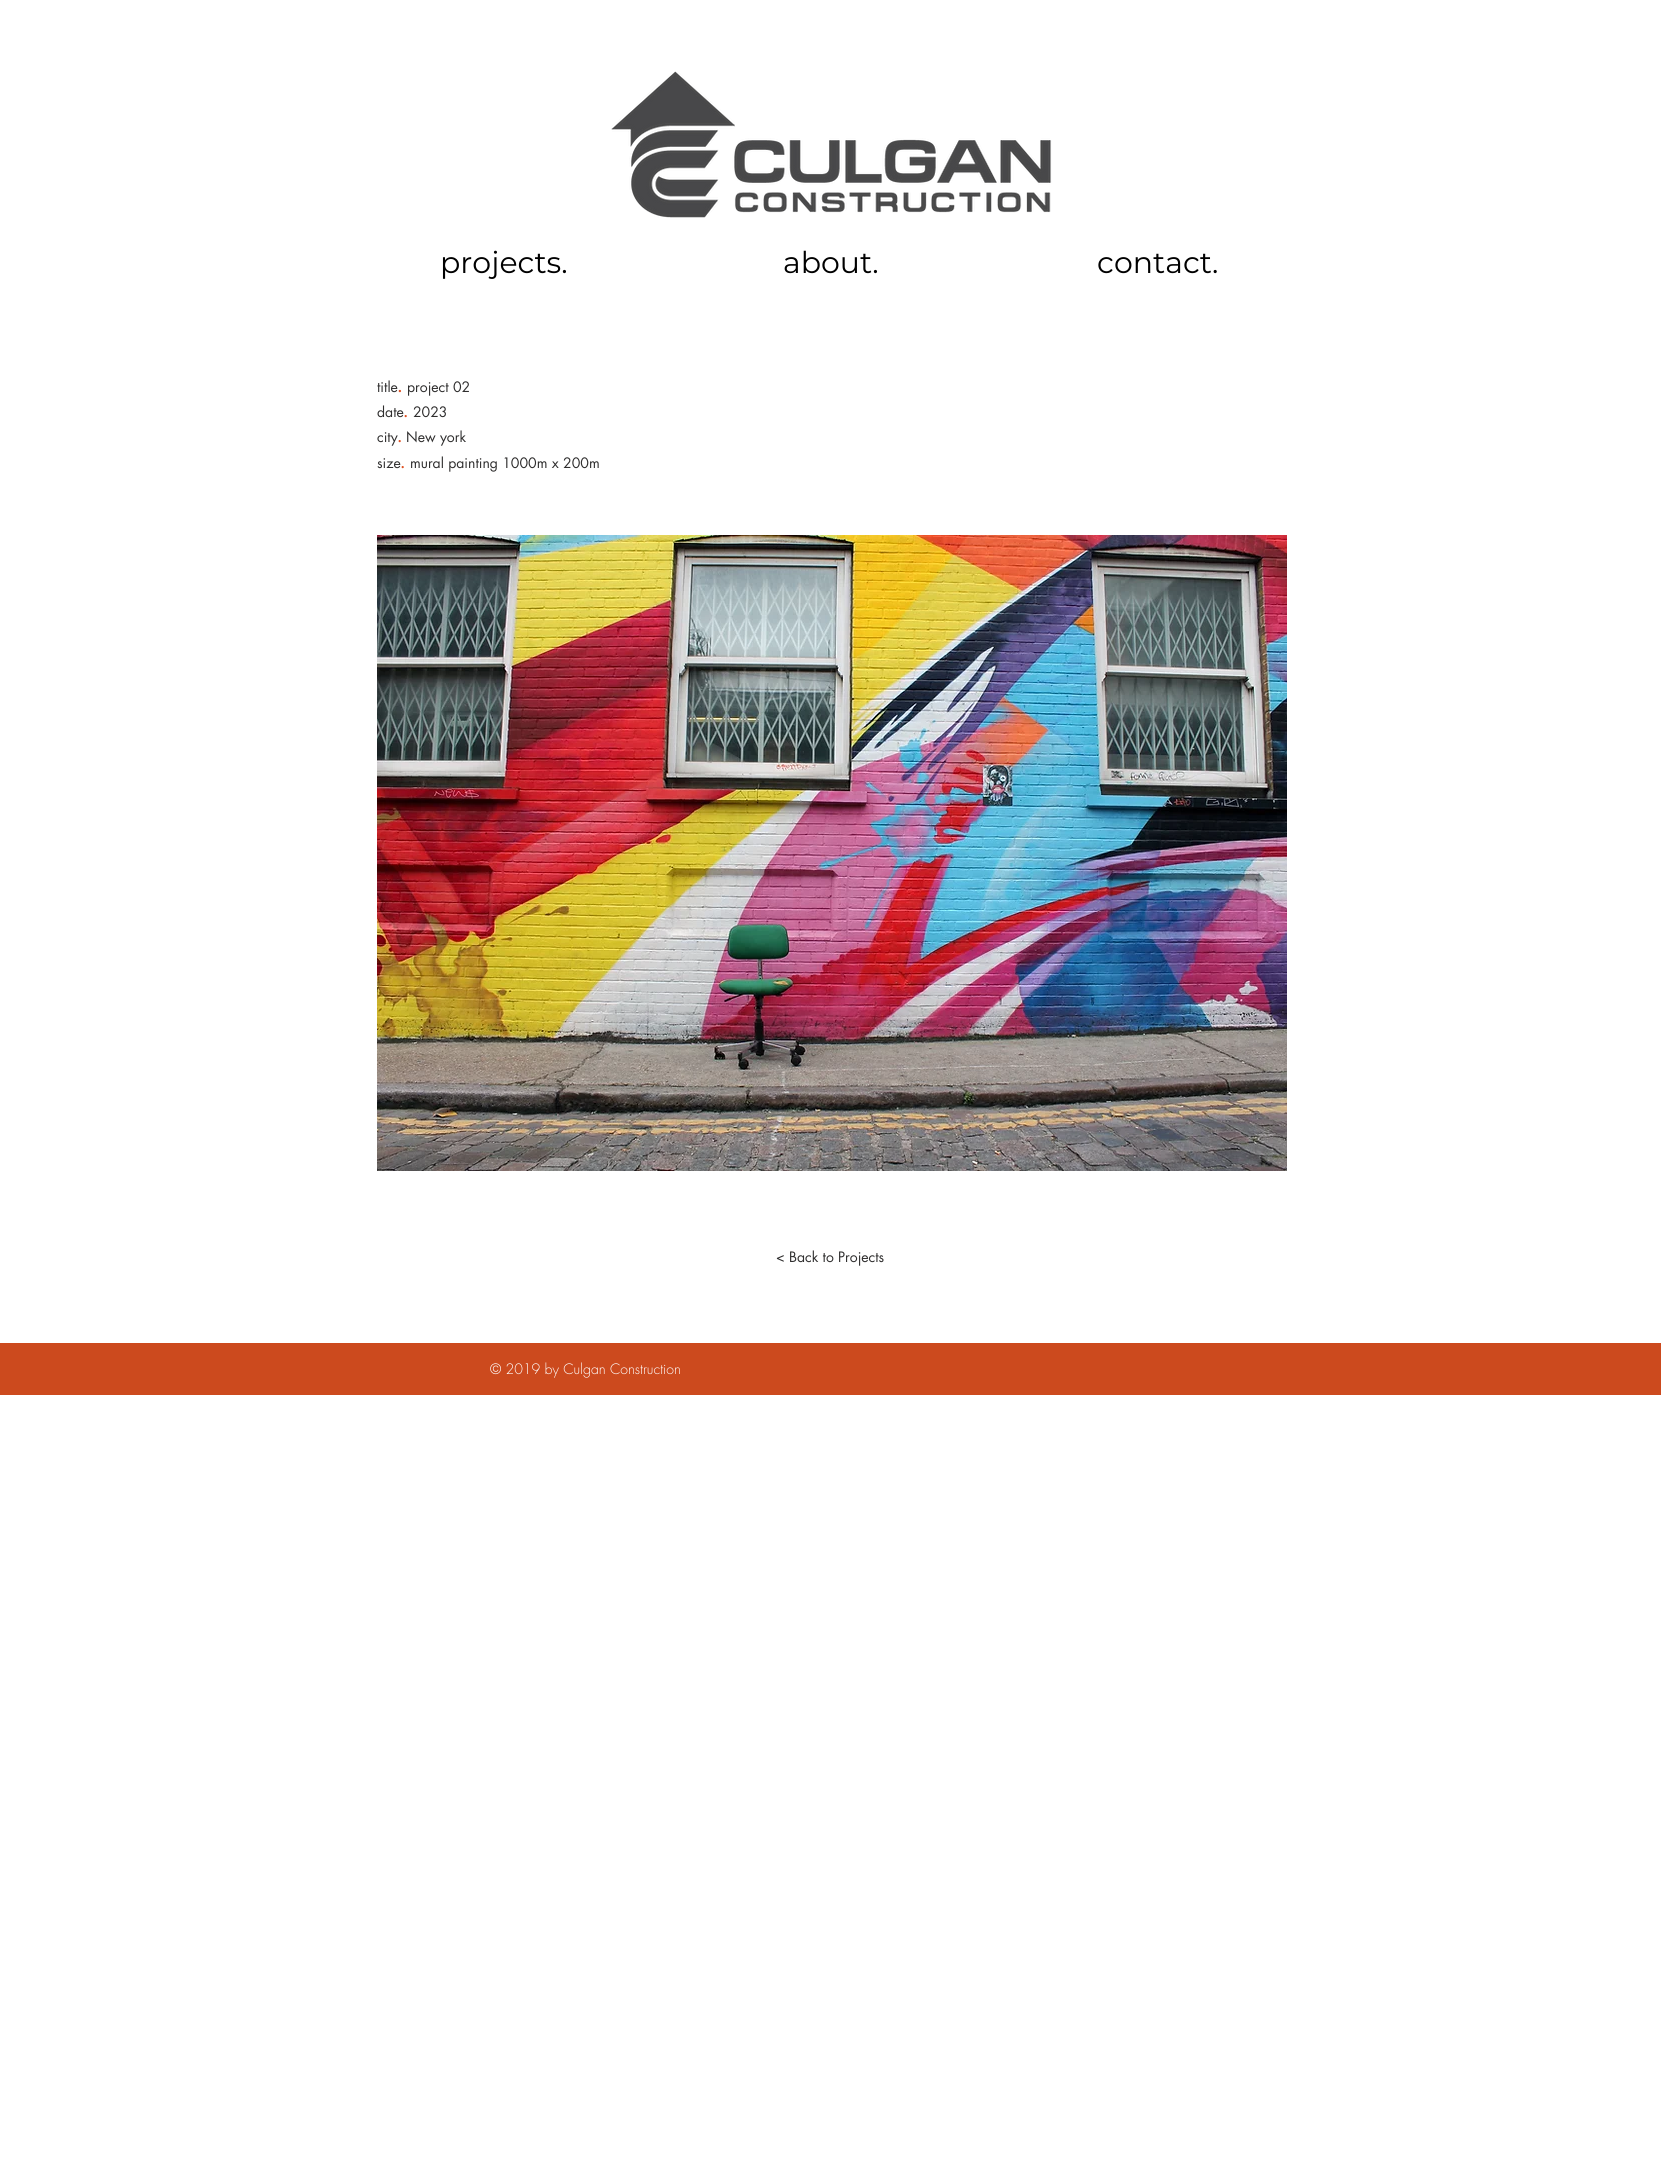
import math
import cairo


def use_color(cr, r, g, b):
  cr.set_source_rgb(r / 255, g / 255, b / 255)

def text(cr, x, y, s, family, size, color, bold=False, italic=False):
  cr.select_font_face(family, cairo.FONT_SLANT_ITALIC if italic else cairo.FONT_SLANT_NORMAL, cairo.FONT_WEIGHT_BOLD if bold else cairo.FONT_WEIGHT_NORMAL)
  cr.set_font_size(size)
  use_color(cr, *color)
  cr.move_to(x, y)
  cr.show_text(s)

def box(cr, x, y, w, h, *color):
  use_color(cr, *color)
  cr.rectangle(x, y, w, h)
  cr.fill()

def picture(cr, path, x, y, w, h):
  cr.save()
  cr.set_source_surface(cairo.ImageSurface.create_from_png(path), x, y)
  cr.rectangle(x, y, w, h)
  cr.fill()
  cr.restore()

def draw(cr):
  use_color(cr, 255, 255, 255)
  cr.paint()
  picture(cr, "img_01.png", 611, 71, 441, 147)
  picture(cr, "img_02.png", 377, 535, 910, 636)
  box(cr, 0, 1343, 1661, 52, 204, 74, 30)
  text(cr, 440, 273, "projects.", "Montserrat", 30, (0, 0, 0))
  text(cr, 783, 273, "about.", "Montserrat", 30, (0, 0, 0))
  text(cr, 1097, 273, "contact.", "Montserrat", 30, (0, 0, 0))
  text(cr, 377, 392, "title", "futura", 14, (47, 46, 46))
  text(cr, 397, 392, ".", "futura", 17, (222, 80, 33), bold=True)
  text(cr, 407, 392, "project 02", "futura", 14, (47, 46, 46))
  text(cr, 377, 417, "date", "futura", 14, (47, 46, 46))
  text(cr, 403, 417, ".", "futura", 16, (222, 80, 33), bold=True)
  text(cr, 413, 417, "2023", "futura", 14, (47, 46, 46))
  text(cr, 377, 442, "city", "futura", 14, (47, 46, 46))
  text(cr, 397, 442, ".", "futura", 16, (222, 80, 33), bold=True)
  text(cr, 406, 442, "New york", "futura", 14, (47, 46, 46))
  text(cr, 377, 468, "size", "futura", 14, (47, 46, 46))
  text(cr, 400, 468, ".", "futura", 16, (222, 80, 33), bold=True)
  text(cr, 410, 468, "mural painting 1000m x 200m", "futura", 14, (47, 46, 46))
  text(cr, 776, 1262, "< Back to Projects", "futura", 14, (47, 46, 46))
  text(cr, 490, 1374, "© 2019 by Culgan Construction", "futura Light", 14, (255, 255, 255))


surface = cairo.ImageSurface(cairo.FORMAT_RGB24, 1661, 2158)
cr = cairo.Context(surface)
options = cairo.FontOptions()
options.set_hint_metrics(cairo.HINT_METRICS_OFF)
options.set_hint_style(cairo.HINT_STYLE_NONE)
cr.set_font_options(options)
cr.set_miter_limit(4)
draw(cr)
surface.write_to_png("out.png")
